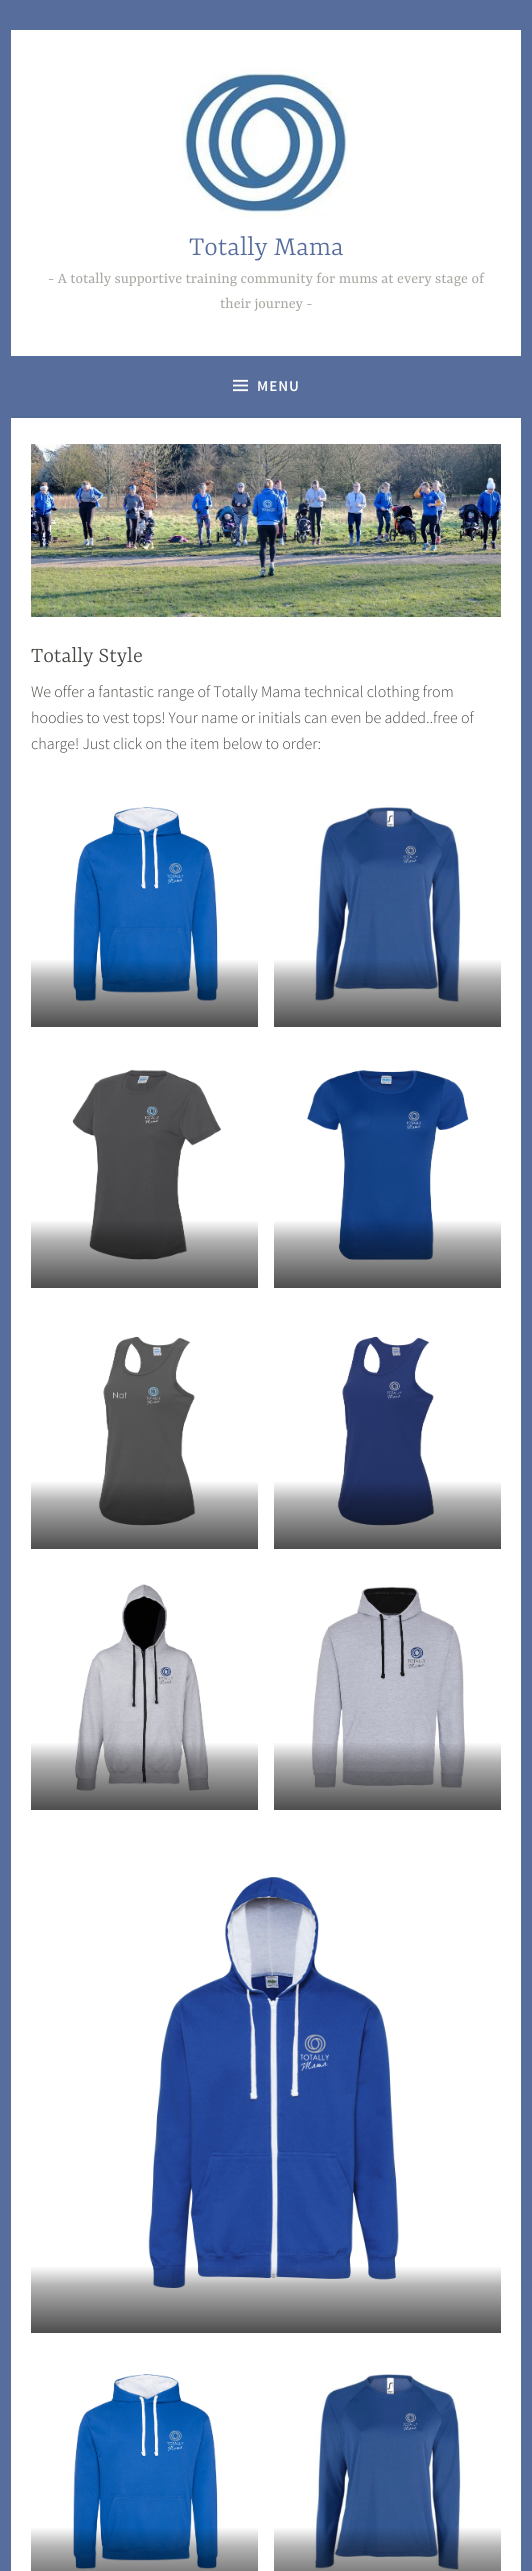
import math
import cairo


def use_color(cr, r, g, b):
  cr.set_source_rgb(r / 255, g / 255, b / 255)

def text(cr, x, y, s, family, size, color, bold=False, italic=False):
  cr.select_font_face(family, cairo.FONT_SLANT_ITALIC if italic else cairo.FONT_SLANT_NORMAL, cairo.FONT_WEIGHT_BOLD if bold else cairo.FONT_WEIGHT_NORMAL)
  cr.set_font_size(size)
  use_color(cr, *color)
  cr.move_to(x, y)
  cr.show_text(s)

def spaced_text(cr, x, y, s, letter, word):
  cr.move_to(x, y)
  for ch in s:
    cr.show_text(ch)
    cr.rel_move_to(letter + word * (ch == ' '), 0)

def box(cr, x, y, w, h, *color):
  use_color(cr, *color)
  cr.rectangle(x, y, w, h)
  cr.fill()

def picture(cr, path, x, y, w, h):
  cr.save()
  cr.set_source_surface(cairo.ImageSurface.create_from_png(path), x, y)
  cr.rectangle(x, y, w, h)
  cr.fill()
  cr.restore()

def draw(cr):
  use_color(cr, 87, 109, 156)
  cr.paint()
  box(cr, 11, 30, 510, 326, 255, 255, 255)
  picture(cr, "img_01.png", 181, 68, 166, 150)
  box(cr, 11, 416, 510, 2, 84, 106, 151)
  picture(cr, "img_02.png", 233, 379, 15, 13)
  box(cr, 11, 418, 510, 2153, 255, 255, 255)
  picture(cr, "img_03.png", 31, 444, 470, 173)
  picture(cr, "img_04.png", 73, 807, 145, 195)
  gradient = cairo.LinearGradient(145, 1027, 145, 959)
  gradient.add_color_stop_rgba(0, 0, 0, 0, 0.7)
  gradient.add_color_stop_rgba(0.7, 0, 0, 0, 0.3)
  gradient.add_color_stop_rgba(1, 0, 0, 0, 0)
  cr.set_source(gradient)
  cr.rectangle(31, 960, 227, 67)
  cr.fill()
  picture(cr, "img_05.png", 313, 807, 148, 198)
  gradient = cairo.LinearGradient(388, 1027, 388, 959)
  gradient.add_color_stop_rgba(0, 0, 0, 0, 0.7)
  gradient.add_color_stop_rgba(0.7, 0, 0, 0, 0.3)
  gradient.add_color_stop_rgba(1, 0, 0, 0, 0)
  cr.set_source(gradient)
  cr.rectangle(274, 960, 227, 67)
  cr.fill()
  picture(cr, "img_06.png", 72, 1069, 149, 191)
  gradient = cairo.LinearGradient(145, 1288, 145, 1220)
  gradient.add_color_stop_rgba(0, 0, 0, 0, 0.7)
  gradient.add_color_stop_rgba(0.7, 0, 0, 0, 0.3)
  gradient.add_color_stop_rgba(1, 0, 0, 0, 0)
  cr.set_source(gradient)
  cr.rectangle(31, 1221, 227, 67)
  cr.fill()
  picture(cr, "img_07.png", 307, 1070, 162, 190)
  gradient = cairo.LinearGradient(388, 1288, 388, 1220)
  gradient.add_color_stop_rgba(0, 0, 0, 0, 0.7)
  gradient.add_color_stop_rgba(0.7, 0, 0, 0, 0.3)
  gradient.add_color_stop_rgba(1, 0, 0, 0, 0)
  cr.set_source(gradient)
  cr.rectangle(274, 1221, 227, 67)
  cr.fill()
  picture(cr, "img_08.png", 98, 1336, 98, 190)
  gradient = cairo.LinearGradient(145, 1549, 145, 1481)
  gradient.add_color_stop_rgba(0, 0, 0, 0, 0.7)
  gradient.add_color_stop_rgba(0.7, 0, 0, 0, 0.3)
  gradient.add_color_stop_rgba(1, 0, 0, 0, 0)
  cr.set_source(gradient)
  cr.rectangle(31, 1482, 227, 67)
  cr.fill()
  picture(cr, "img_09.png", 337, 1336, 98, 190)
  gradient = cairo.LinearGradient(388, 1549, 388, 1481)
  gradient.add_color_stop_rgba(0, 0, 0, 0, 0.7)
  gradient.add_color_stop_rgba(0.7, 0, 0, 0, 0.3)
  gradient.add_color_stop_rgba(1, 0, 0, 0, 0)
  cr.set_source(gradient)
  cr.rectangle(274, 1482, 227, 67)
  cr.fill()
  picture(cr, "img_10.png", 75, 1584, 135, 207)
  gradient = cairo.LinearGradient(145, 1810, 145, 1742)
  gradient.add_color_stop_rgba(0, 0, 0, 0, 0.7)
  gradient.add_color_stop_rgba(0.7, 0, 0, 0, 0.3)
  gradient.add_color_stop_rgba(1, 0, 0, 0, 0)
  cr.set_source(gradient)
  cr.rectangle(31, 1743, 227, 67)
  cr.fill()
  picture(cr, "img_11.png", 311, 1586, 154, 202)
  gradient = cairo.LinearGradient(388, 1810, 388, 1742)
  gradient.add_color_stop_rgba(0, 0, 0, 0, 0.7)
  gradient.add_color_stop_rgba(0.7, 0, 0, 0, 0.3)
  gradient.add_color_stop_rgba(1, 0, 0, 0, 0)
  cr.set_source(gradient)
  cr.rectangle(274, 1743, 227, 67)
  cr.fill()
  picture(cr, "img_12.png", 148, 1877, 251, 411)
  gradient = cairo.LinearGradient(266, 2333, 266, 2266)
  gradient.add_color_stop_rgba(0, 0, 0, 0, 0.7)
  gradient.add_color_stop_rgba(0.7, 0, 0, 0, 0.3)
  gradient.add_color_stop_rgba(1, 0, 0, 0, 0)
  cr.set_source(gradient)
  cr.rectangle(31, 2267, 470, 66)
  cr.fill()
  picture(cr, "img_13.png", 73, 2374, 145, 195)
  gradient = cairo.LinearGradient(145, 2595, 145, 2527)
  gradient.add_color_stop_rgba(0, 0, 0, 0, 0.7)
  gradient.add_color_stop_rgba(0.7, 0, 0, 0, 0.3)
  gradient.add_color_stop_rgba(1, 0, 0, 0, 0)
  cr.set_source(gradient)
  cr.rectangle(31, 2528, 227, 43)
  cr.fill()
  picture(cr, "img_14.png", 313, 2374, 148, 197)
  gradient = cairo.LinearGradient(388, 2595, 388, 2527)
  gradient.add_color_stop_rgba(0, 0, 0, 0, 0.7)
  gradient.add_color_stop_rgba(0.7, 0, 0, 0, 0.3)
  gradient.add_color_stop_rgba(1, 0, 0, 0, 0)
  cr.set_source(gradient)
  cr.rectangle(274, 2528, 227, 43)
  cr.fill()
  text(cr, 189, 255, "Totally Mama", "Yrsa Light", 29, (87, 109, 156))
  text(cr, 48, 283, "- A totally supportive training community for mums at every stage of", "Yrsa", 16, (168, 166, 161))
  text(cr, 220, 308, "their journey -", "Yrsa", 16, (168, 166, 161))
  cr.select_font_face("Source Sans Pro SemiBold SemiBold")
  cr.set_font_size(15)
  use_color(cr, 255, 255, 255)
  spaced_text(cr, 257, 391, "MENU", 1, 0)
  text(cr, 31, 662, "Totally Style", "Yrsa Light", 23, (68, 67, 64))
  text(cr, 31, 697, "We offer a fantastic range of Totally Mama technical clothing from", "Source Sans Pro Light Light", 16, (68, 67, 64))
  text(cr, 31, 723, "hoodies to vest tops! Your name or initials can even be added..free of", "Source Sans Pro Light Light", 16, (68, 67, 64))
  text(cr, 31, 749, "charge! Just click on the item below to order:", "Source Sans Pro Light Light", 16, (68, 67, 64))


surface = cairo.ImageSurface(cairo.FORMAT_RGB24, 532, 2571)
cr = cairo.Context(surface)
options = cairo.FontOptions()
options.set_hint_metrics(cairo.HINT_METRICS_OFF)
options.set_hint_style(cairo.HINT_STYLE_NONE)
cr.set_font_options(options)
cr.set_miter_limit(4)
draw(cr)
surface.write_to_png("out.png")
